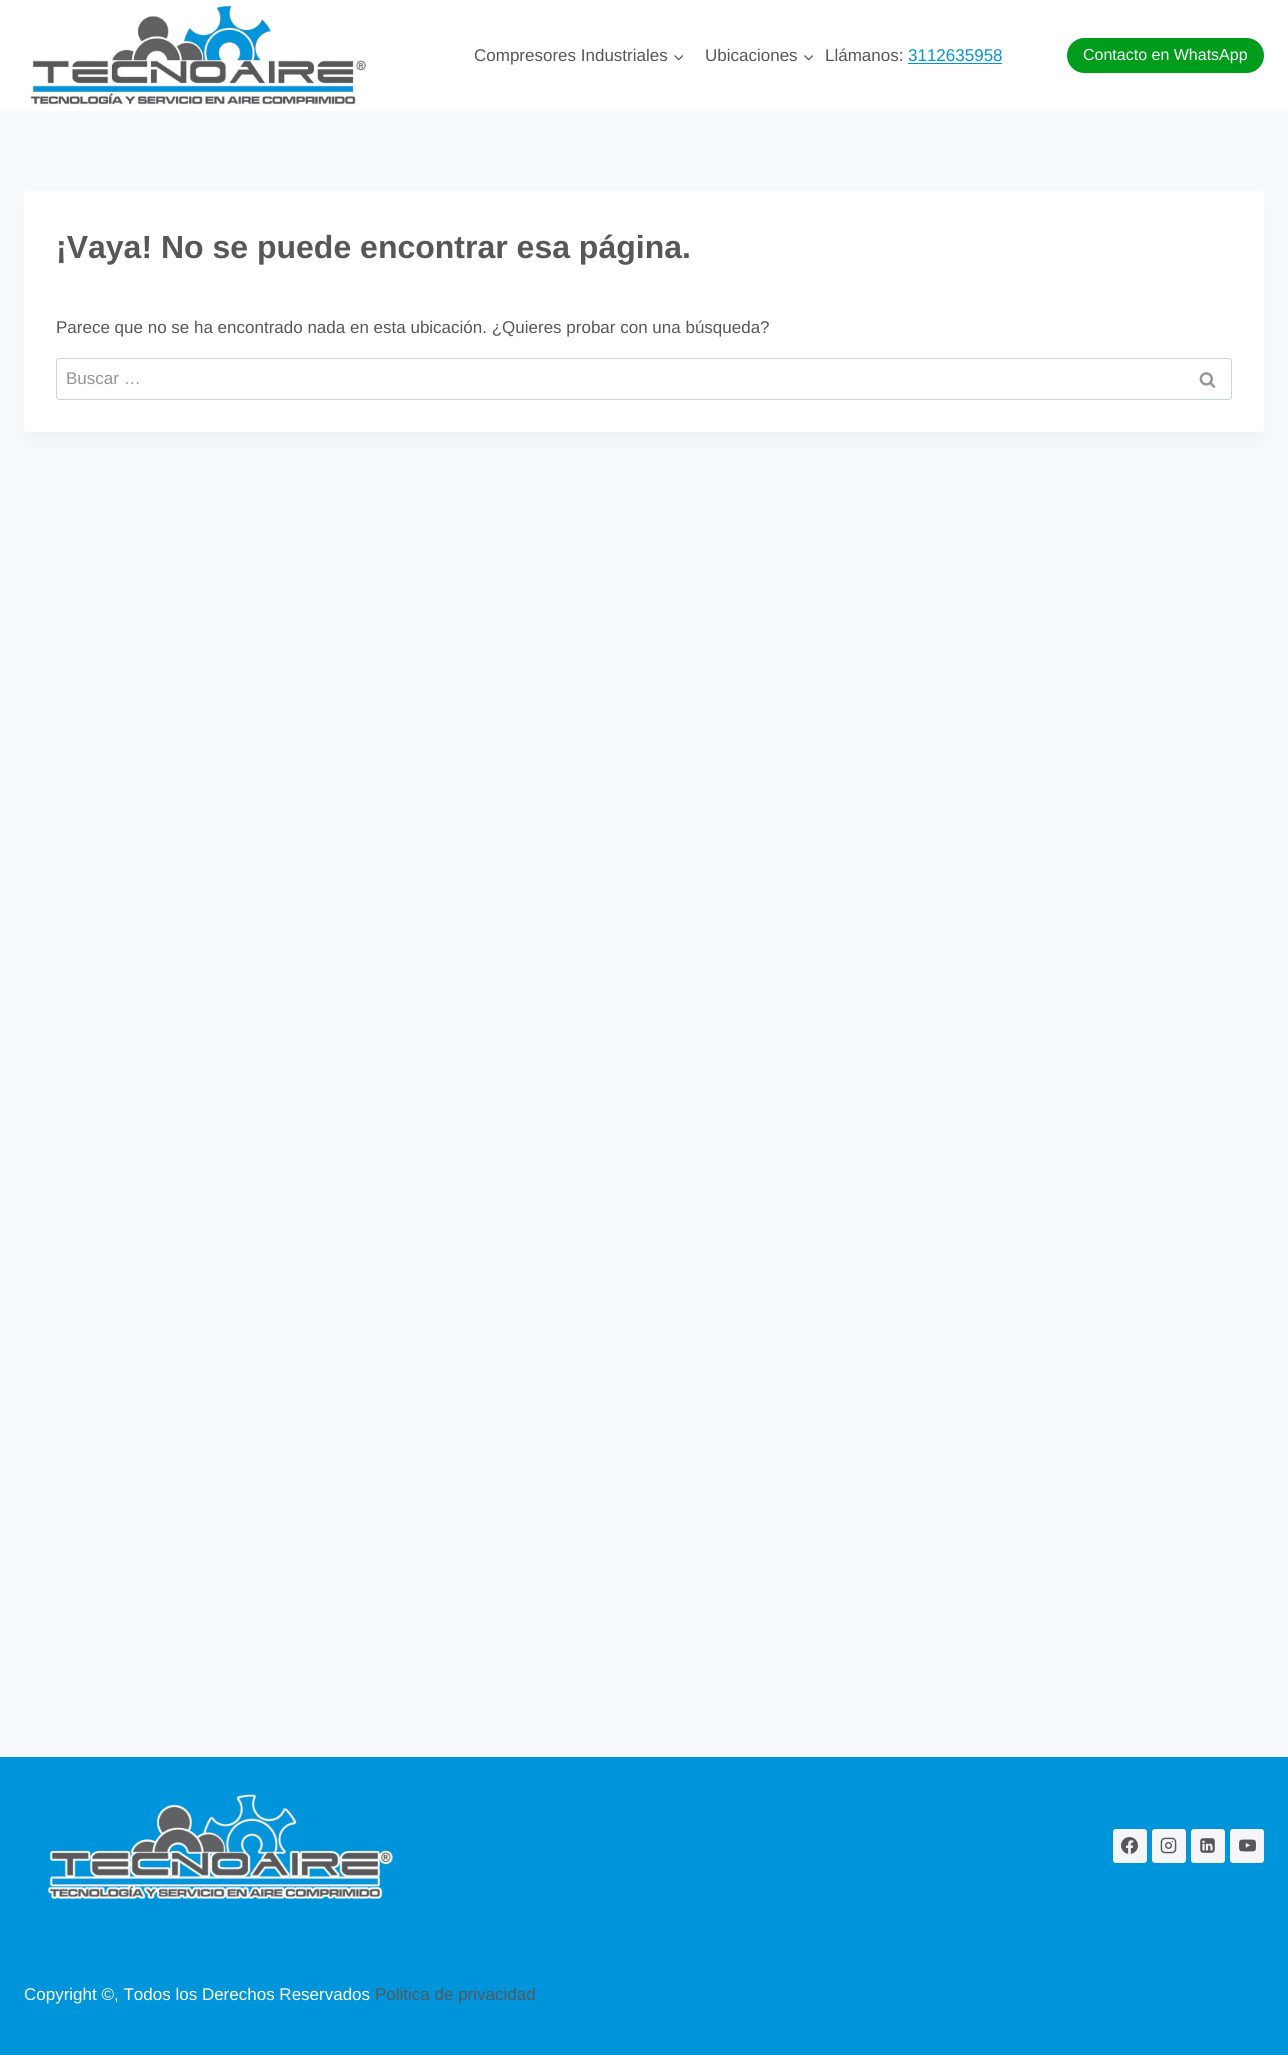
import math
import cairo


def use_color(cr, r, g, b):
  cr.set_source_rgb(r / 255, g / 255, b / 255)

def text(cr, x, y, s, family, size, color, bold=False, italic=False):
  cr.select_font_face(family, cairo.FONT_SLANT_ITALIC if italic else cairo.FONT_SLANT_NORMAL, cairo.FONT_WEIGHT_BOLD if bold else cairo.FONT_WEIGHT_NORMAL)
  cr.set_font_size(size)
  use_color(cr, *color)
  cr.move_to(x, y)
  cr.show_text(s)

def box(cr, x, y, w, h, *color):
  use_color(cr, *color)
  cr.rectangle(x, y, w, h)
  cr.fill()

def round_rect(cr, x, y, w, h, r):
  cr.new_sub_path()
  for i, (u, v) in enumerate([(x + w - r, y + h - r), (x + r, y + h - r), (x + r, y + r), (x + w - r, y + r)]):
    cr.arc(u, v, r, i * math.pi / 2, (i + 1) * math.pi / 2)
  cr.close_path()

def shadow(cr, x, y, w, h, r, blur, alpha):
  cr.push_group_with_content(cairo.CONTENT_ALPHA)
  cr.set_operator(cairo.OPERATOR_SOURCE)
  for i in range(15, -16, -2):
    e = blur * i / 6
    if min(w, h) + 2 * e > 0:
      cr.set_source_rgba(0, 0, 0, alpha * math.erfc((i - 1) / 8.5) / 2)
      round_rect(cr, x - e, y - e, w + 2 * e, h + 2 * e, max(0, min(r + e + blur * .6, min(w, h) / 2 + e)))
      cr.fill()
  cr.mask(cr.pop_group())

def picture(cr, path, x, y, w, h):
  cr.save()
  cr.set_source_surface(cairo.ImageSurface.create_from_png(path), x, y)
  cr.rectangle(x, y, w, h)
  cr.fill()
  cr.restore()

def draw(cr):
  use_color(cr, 247, 250, 252)
  cr.paint()
  box(cr, 0, 0, 1288, 111, 255, 255, 255)
  picture(cr, "img_01.png", 30, 5, 336, 100)
  picture(cr, "img_02.png", 674, 55, 10, 6)
  picture(cr, "img_02.png", 804, 55, 10, 6)
  box(cr, 908, 63, 94, 1, 0, 149, 218)
  use_color(cr, 0, 157, 29)
  round_rect(cr, 1067, 38, 197, 35, 17.5)
  cr.fill()
  use_color(cr, 0, 0, 0)
  shadow(cr, 34, 216, 1220, 221, 0, 12.5, 0.05)
  use_color(cr, 255, 255, 255)
  round_rect(cr, 24, 191, 1240, 241, 4)
  cr.fill()
  round_rect(cr, 56.5, 358.5, 1175, 41, 2.5)
  use_color(cr, 203, 213, 224)
  cr.set_line_width(1)
  cr.stroke()
  picture(cr, "img_03.png", 1199, 372, 17, 16)
  box(cr, 0, 1757, 1288, 298, 0, 149, 218)
  picture(cr, "img_04.png", 47, 1794, 346, 105)
  use_color(cr, 246, 246, 250)
  round_rect(cr, 1113, 1829, 34, 34, 3)
  cr.fill()
  picture(cr, "img_05.png", 1121, 1837, 17, 17)
  round_rect(cr, 1152, 1829, 34, 34, 3)
  cr.fill()
  picture(cr, "img_06.png", 1160, 1837, 17, 17)
  round_rect(cr, 1191, 1829, 34, 34, 3)
  cr.fill()
  picture(cr, "img_07.png", 1200, 1838, 15, 15)
  round_rect(cr, 1230, 1829, 34, 34, 3)
  cr.fill()
  picture(cr, "img_08.png", 1239, 1839, 17, 13)
  text(cr, 474, 61, "Compresores Industriales", "Liberation Sans", 17, (86, 87, 90))
  text(cr, 705, 61, "Ubicaciones", "Liberation Sans", 17, (86, 87, 90))
  text(cr, 825, 61, "Llámanos:", "Liberation Sans", 17, (86, 87, 90))
  text(cr, 908, 61, "3112635958", "Liberation Sans", 17, (0, 149, 218))
  text(cr, 1083, 60, "Contacto en WhatsApp", "Liberation Sans", 16, (255, 255, 255))
  text(cr, 56, 258, "¡Vaya! No se puede encontrar esa página.", "Liberation Sans", 32, (86, 87, 90), bold=True)
  text(cr, 56, 333, "Parece que no se ha encontrado nada en esta ubicación. ¿Quieres probar con una búsqueda?", "Liberation Sans", 17, (86, 87, 90))
  text(cr, 66, 384, "Buscar …", "Liberation Sans", 17, (147, 149, 152))
  text(cr, 24, 2000, "Copyright ©, Todos los Derechos Reservados", "Liberation Sans", 17, (255, 255, 255))
  text(cr, 375, 2000, "Politica de privacidad", "Liberation Sans", 17, (86, 87, 90))


surface = cairo.ImageSurface(cairo.FORMAT_RGB24, 1288, 2055)
cr = cairo.Context(surface)
options = cairo.FontOptions()
options.set_hint_metrics(cairo.HINT_METRICS_OFF)
options.set_hint_style(cairo.HINT_STYLE_NONE)
cr.set_font_options(options)
cr.set_miter_limit(4)
draw(cr)
surface.write_to_png("out.png")
